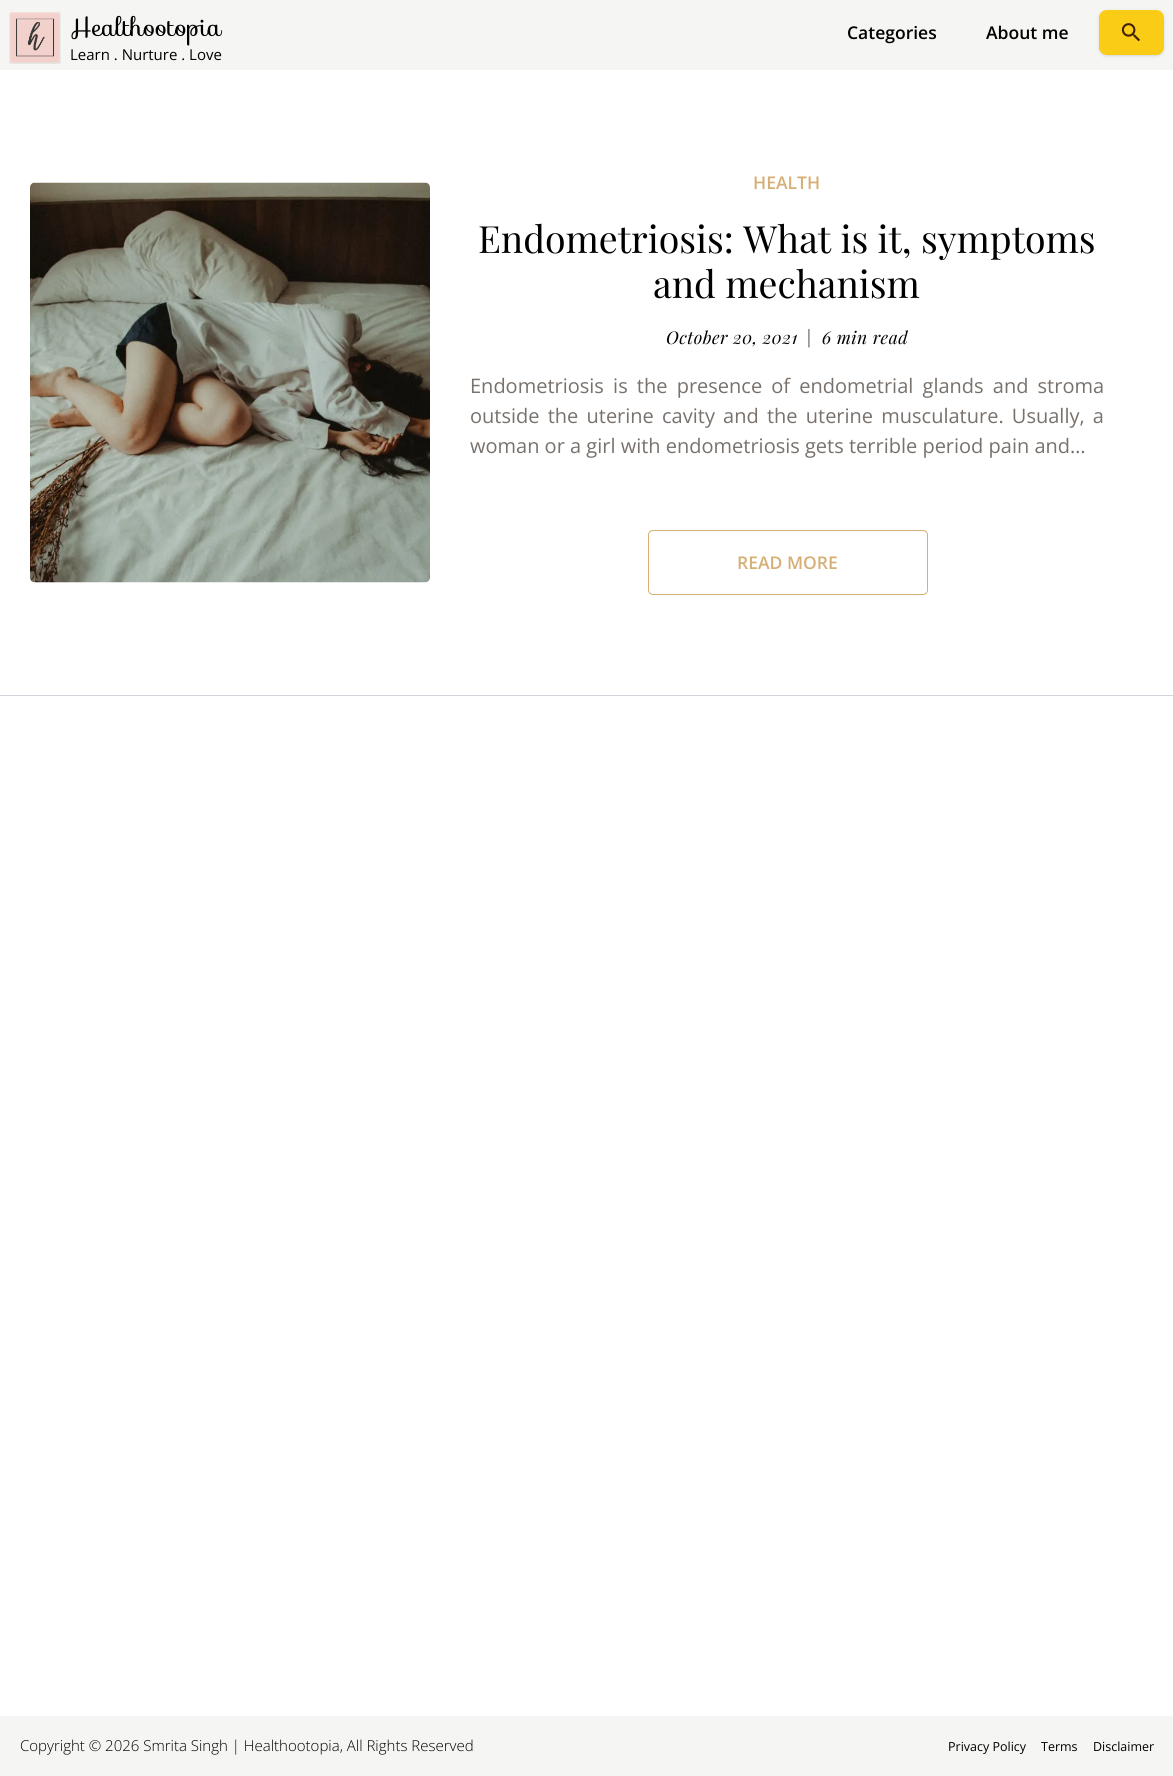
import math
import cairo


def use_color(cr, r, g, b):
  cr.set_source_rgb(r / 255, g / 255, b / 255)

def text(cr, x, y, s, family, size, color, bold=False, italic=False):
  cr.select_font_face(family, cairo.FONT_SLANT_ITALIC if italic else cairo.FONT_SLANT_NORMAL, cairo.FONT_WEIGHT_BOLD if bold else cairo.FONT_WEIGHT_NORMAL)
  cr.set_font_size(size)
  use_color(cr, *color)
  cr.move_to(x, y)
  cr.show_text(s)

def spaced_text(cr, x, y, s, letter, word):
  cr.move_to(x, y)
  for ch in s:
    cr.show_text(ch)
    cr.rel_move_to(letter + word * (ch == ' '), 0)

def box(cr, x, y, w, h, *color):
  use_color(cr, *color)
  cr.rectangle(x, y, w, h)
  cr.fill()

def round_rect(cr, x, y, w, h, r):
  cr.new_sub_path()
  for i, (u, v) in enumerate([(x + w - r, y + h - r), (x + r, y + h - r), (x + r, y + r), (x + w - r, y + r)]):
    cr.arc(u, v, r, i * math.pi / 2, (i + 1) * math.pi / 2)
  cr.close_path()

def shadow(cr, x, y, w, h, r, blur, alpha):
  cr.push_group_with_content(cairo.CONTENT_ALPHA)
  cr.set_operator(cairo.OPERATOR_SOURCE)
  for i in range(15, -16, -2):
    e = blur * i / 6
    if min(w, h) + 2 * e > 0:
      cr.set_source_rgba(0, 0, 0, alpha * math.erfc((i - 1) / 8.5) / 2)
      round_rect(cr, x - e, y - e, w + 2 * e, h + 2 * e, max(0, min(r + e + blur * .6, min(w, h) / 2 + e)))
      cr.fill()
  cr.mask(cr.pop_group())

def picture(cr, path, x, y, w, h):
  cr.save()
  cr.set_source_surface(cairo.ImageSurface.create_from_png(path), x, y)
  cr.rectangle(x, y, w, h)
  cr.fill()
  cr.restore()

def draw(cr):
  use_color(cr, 255, 255, 255)
  cr.paint()
  box(cr, 0, 0, 1173, 70, 245, 245, 244)
  picture(cr, "img_01.png", 9, 12, 52, 52)
  use_color(cr, 0, 0, 0)
  shadow(cr, 1100, 13, 63, 42, 6, 1, 0.1)
  shadow(cr, 1099, 11, 65, 45, 8, 2, 0.1)
  use_color(cr, 250, 204, 21)
  round_rect(cr, 1099, 10, 65, 45, 8)
  cr.fill()
  picture(cr, "img_02.png", 1121, 23, 19, 19)
  picture(cr, "img_03.png", 30, 182, 400, 401)
  round_rect(cr, 648.5, 530.5, 279, 64, 4.5)
  use_color(cr, 213, 175, 117)
  cr.set_line_width(1)
  cr.stroke()
  box(cr, 0, 695, 1173, 1, 209, 213, 219)
  box(cr, 0, 1716, 1173, 60, 245, 245, 244)
  text(cr, 70, 36, "Healthootopia", "Sofia", 25, (0, 0, 0))
  text(cr, 70, 60, "Learn . Nurture . Love", "Open Sans", 15, (0, 0, 0))
  text(cr, 847, 39, "Categories", "Open Sans SemiBold", 17.5, (0, 0, 0))
  text(cr, 986, 39, "About me", "Open Sans SemiBold", 17.5, (0, 0, 0))
  text(cr, 753, 189, "HEALTH", "Open Sans SemiBold", 17.5, (213, 175, 117))
  text(cr, 478, 253, "Endometriosis: What is it, symptoms", "Playfair Display", 37.5, (0, 0, 0))
  text(cr, 653, 298, "and mechanism", "Playfair Display", 37.5, (0, 0, 0))
  cr.select_font_face("Playfair Display", cairo.FONT_SLANT_ITALIC)
  cr.set_font_size(17.5)
  spaced_text(cr, 666, 344, "October 20, 2021", 0.5, 0)
  cr.select_font_face("Playfair Display")
  spaced_text(cr, 807, 344, "|", 0.5, 0)
  cr.select_font_face("Playfair Display", cairo.FONT_SLANT_ITALIC)
  spaced_text(cr, 822, 344, "6 min read", 0.5, 0)
  cr.select_font_face("Open Sans")
  cr.set_font_size(20)
  use_color(cr, 120, 113, 108)
  spaced_text(cr, 470, 393, "Endometriosis is the presence of endometrial glands and stroma", 0, 4)
  spaced_text(cr, 470, 423, "outside the uterine cavity and the uterine musculature. Usually, a", 0, 3)
  text(cr, 470, 453, "woman or a girl with endometriosis gets terrible period pain and…", "Open Sans", 20, (120, 113, 108))
  text(cr, 737, 569, "READ MORE", "Open Sans SemiBold", 17.5, (213, 175, 117))
  text(cr, 20, 1751, "Copyright © 2026 Smrita Singh | Healthootopia, All Rights Reserved", "Open Sans Light", 15, (0, 0, 0))
  text(cr, 948, 1751, "Privacy Policy", "Open Sans", 12.5, (0, 0, 0))
  text(cr, 1041, 1751, "Terms", "Open Sans", 12.5, (0, 0, 0))
  text(cr, 1093, 1751, "Disclaimer", "Open Sans", 12.5, (0, 0, 0))


surface = cairo.ImageSurface(cairo.FORMAT_RGB24, 1173, 1776)
cr = cairo.Context(surface)
options = cairo.FontOptions()
options.set_hint_metrics(cairo.HINT_METRICS_OFF)
options.set_hint_style(cairo.HINT_STYLE_NONE)
cr.set_font_options(options)
cr.set_miter_limit(4)
draw(cr)
surface.write_to_png("out.png")
